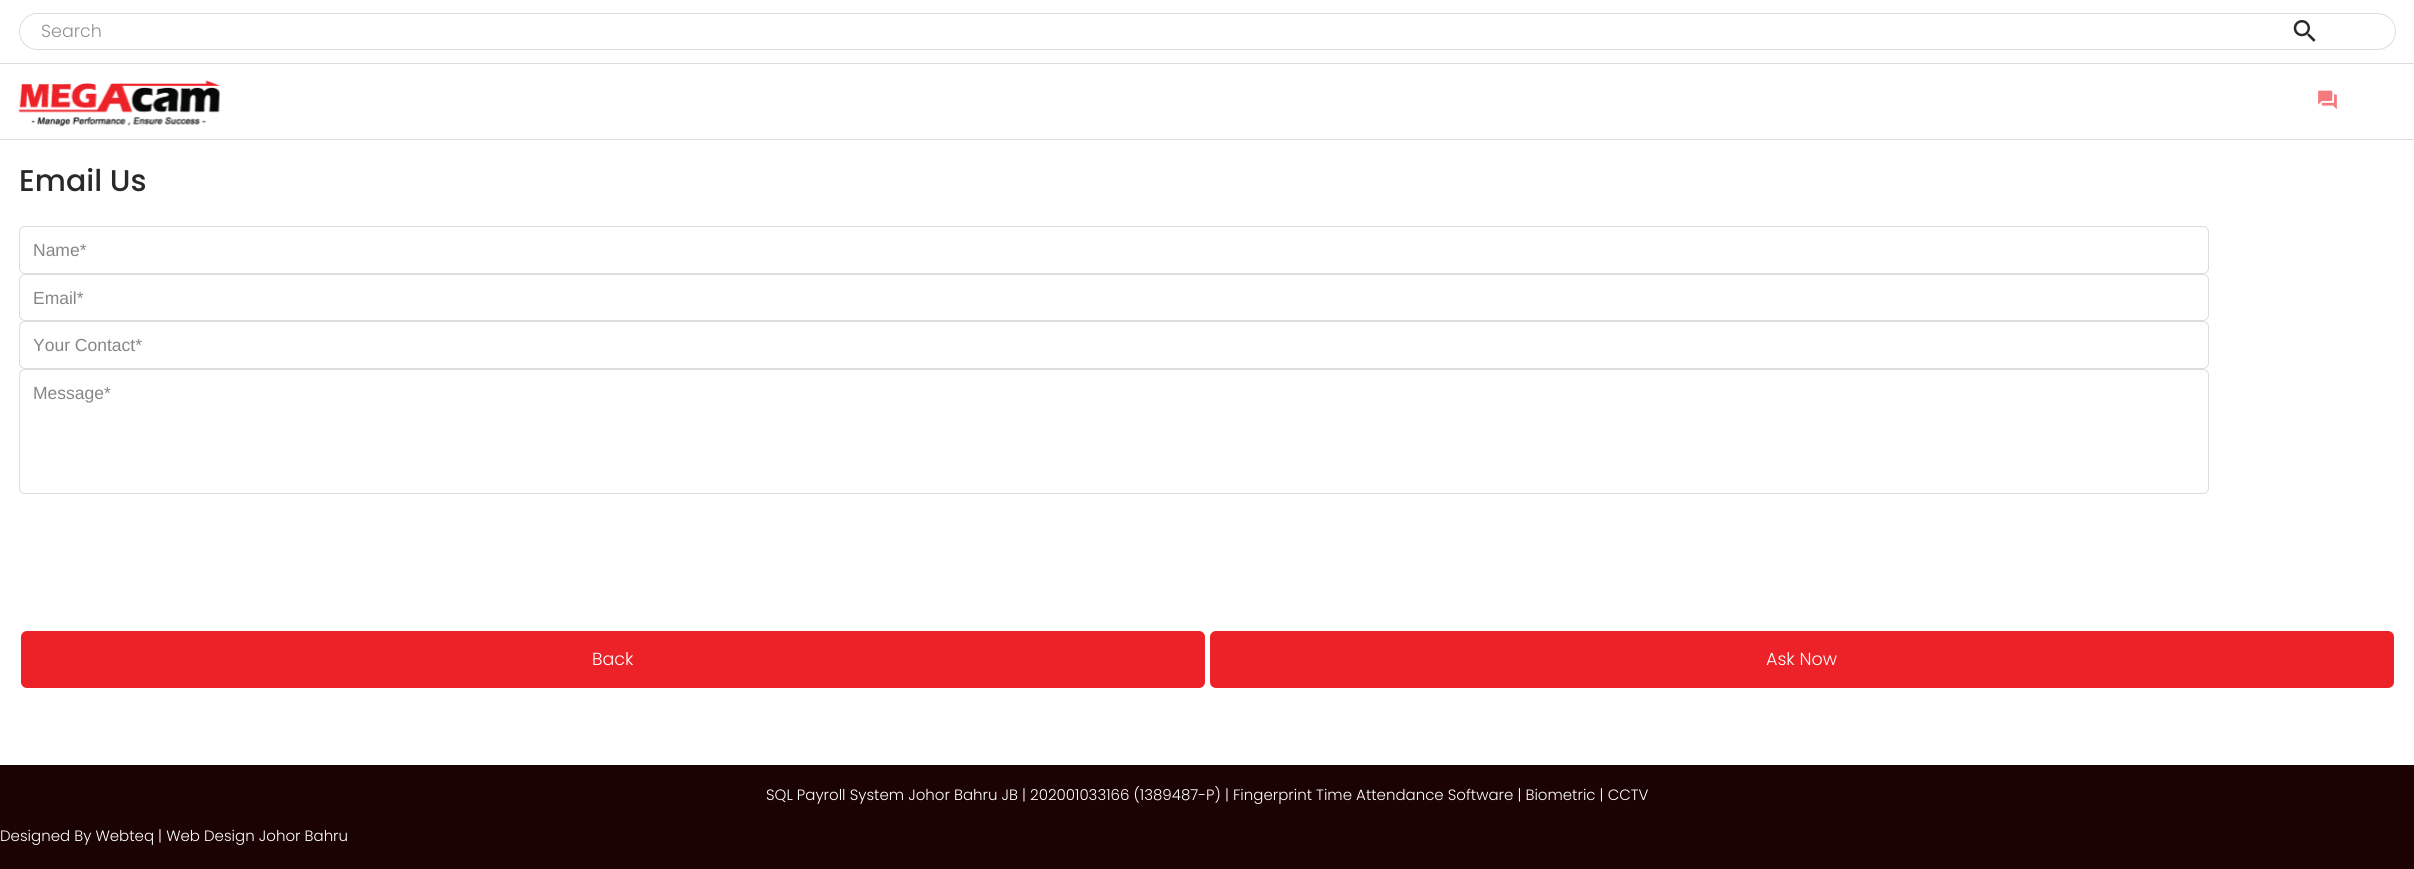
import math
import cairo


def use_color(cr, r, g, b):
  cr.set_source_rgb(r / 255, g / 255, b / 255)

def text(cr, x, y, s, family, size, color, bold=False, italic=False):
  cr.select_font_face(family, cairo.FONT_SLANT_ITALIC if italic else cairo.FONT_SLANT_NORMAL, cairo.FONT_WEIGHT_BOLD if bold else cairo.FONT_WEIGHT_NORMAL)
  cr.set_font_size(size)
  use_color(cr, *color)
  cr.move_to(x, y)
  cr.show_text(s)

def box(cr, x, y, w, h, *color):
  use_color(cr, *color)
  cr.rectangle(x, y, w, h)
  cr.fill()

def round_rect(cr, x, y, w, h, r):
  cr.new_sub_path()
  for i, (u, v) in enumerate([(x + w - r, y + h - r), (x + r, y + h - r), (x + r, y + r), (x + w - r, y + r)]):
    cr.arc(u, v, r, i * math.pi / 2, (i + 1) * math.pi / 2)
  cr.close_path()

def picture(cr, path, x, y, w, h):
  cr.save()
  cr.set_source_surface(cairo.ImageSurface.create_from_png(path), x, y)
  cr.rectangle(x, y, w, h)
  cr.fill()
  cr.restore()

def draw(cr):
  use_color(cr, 255, 255, 255)
  cr.paint()
  box(cr, 0, 139, 2414, 1, 221, 221, 221)
  box(cr, 0, 63, 2414, 1, 221, 221, 221)
  round_rect(cr, 19.5, 13.5, 2376, 36, 18)
  cr.set_line_width(1)
  cr.stroke()
  picture(cr, "img_01.png", 2293, 20, 23, 22)
  picture(cr, "img_02.png", 18, 80, 202, 47)
  picture(cr, "img_03.png", 2318, 90, 19, 20)
  round_rect(cr, 19.5, 226.5, 2189, 47, 5.5)
  cr.stroke()
  round_rect(cr, 19.5, 274.5, 2189, 46, 5.5)
  cr.stroke()
  round_rect(cr, 19.5, 321.5, 2189, 47, 5.5)
  cr.stroke()
  round_rect(cr, 19.5, 369.5, 2189, 124, 5.5)
  cr.stroke()
  use_color(cr, 237, 34, 40)
  round_rect(cr, 21, 631, 1184, 57, 6)
  cr.fill()
  round_rect(cr, 1210, 631, 1184, 57, 6)
  cr.fill()
  box(cr, 0, 765, 2414, 104, 27, 3, 3)
  text(cr, 41, 37, "Search", "Poppins Light", 17.5, (145, 145, 145))
  text(cr, 19, 191, "Email Us", "Poppins Medium", 30, (41, 41, 41))
  text(cr, 33, 256, "Name*", "Liberation Sans", 17.5, (134, 134, 134))
  text(cr, 33, 304, "Email*", "Liberation Sans", 17.5, (134, 134, 134))
  text(cr, 33, 351, "Your Contact*", "Liberation Sans", 17.5, (134, 134, 134))
  text(cr, 33, 399, "Message*", "Liberation Sans", 17.5, (134, 134, 134))
  text(cr, 592, 665, "Back", "Poppins Light", 17.5, (255, 255, 255))
  text(cr, 1766, 665, "Ask Now", "Poppins Light", 17.5, (255, 255, 255))
  text(cr, 766, 800, "SQL Payroll System Johor Bahru JB | 202001033166 (1389487-P) | Fingerprint Time Attendance Software | Biometric | CCTV", "Poppins Light", 15, (255, 255, 255))
  text(cr, 0, 841, "Designed By Webteq | Web Design Johor Bahru", "Poppins Light", 15, (255, 255, 255))


surface = cairo.ImageSurface(cairo.FORMAT_RGB24, 2414, 869)
cr = cairo.Context(surface)
options = cairo.FontOptions()
options.set_hint_metrics(cairo.HINT_METRICS_OFF)
options.set_hint_style(cairo.HINT_STYLE_NONE)
cr.set_font_options(options)
cr.set_miter_limit(4)
draw(cr)
surface.write_to_png("out.png")
